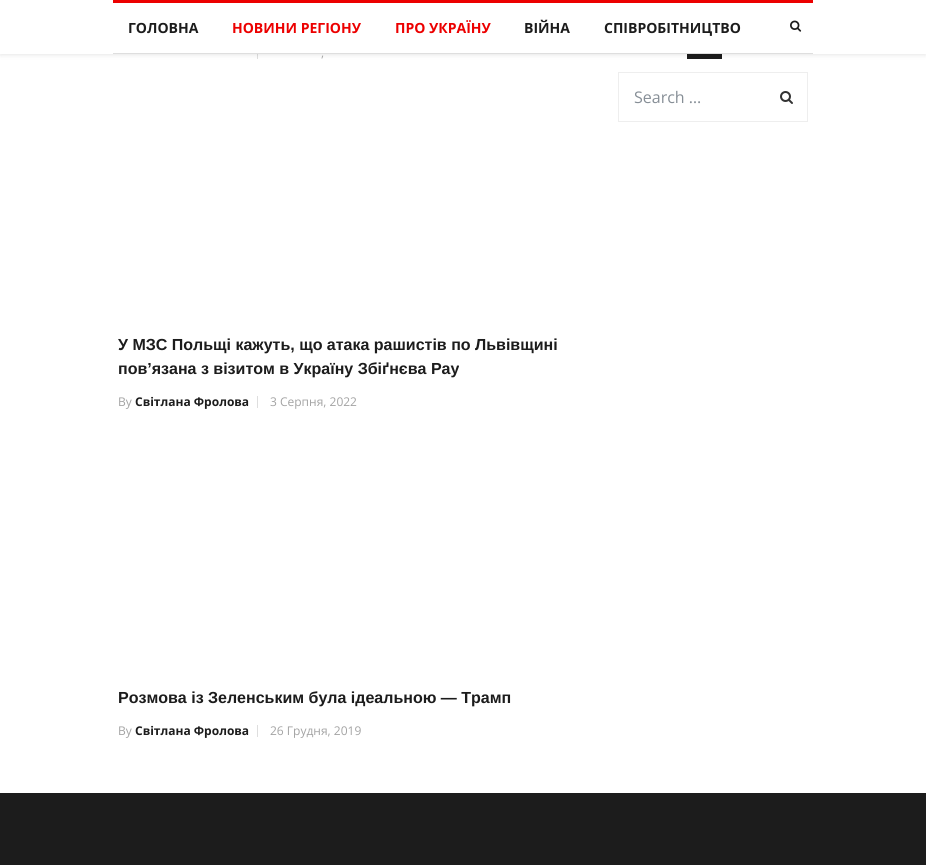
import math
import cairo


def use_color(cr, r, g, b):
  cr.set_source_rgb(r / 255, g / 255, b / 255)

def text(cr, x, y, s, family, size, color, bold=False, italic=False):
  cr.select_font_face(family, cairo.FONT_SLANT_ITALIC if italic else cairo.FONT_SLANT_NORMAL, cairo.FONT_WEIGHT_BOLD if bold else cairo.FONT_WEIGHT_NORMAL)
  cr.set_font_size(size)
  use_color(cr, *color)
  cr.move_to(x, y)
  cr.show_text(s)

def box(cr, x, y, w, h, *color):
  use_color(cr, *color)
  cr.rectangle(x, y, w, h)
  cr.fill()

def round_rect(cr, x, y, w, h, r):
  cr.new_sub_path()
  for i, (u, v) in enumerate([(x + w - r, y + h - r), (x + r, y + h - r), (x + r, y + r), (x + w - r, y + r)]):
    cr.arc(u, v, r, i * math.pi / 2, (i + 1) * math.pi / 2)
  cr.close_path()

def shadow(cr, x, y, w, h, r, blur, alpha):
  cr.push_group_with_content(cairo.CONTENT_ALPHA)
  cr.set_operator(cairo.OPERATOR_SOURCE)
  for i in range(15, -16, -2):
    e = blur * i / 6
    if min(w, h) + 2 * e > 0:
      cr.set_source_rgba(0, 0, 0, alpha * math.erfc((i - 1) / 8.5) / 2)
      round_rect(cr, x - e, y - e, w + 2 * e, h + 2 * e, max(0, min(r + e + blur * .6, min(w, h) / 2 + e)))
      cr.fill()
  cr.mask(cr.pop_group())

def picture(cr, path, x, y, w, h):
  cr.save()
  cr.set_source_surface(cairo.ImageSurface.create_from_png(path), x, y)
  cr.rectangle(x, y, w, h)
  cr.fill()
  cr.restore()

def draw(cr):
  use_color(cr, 255, 255, 255)
  cr.paint()
  box(cr, 257, 47, 1, 12, 222, 222, 222)
  box(cr, 687, 54, 35, 5, 28, 28, 28)
  use_color(cr, 0, 0, 0)
  shadow(cr, 0, 1, 926, 54, 0, 2.5, 0.1)
  box(cr, 0, 0, 926, 54, 255, 255, 255)
  box(cr, 113, 0, 700, 3, 236, 0, 0)
  box(cr, 113, 53, 700, 1, 222, 222, 222)
  picture(cr, "img_01.png", 790, 20, 12, 12)
  box(cr, 257, 396, 1, 12, 222, 222, 222)
  box(cr, 257, 725, 1, 12, 222, 222, 222)
  cr.rectangle(618.5, 72.5, 189, 49)
  use_color(cr, 238, 238, 238)
  cr.set_line_width(1)
  cr.stroke()
  picture(cr, "img_02.png", 780, 91, 13, 13)
  box(cr, 0, 793, 926, 72, 28, 28, 28)
  text(cr, 128, 33, "ГОЛОВНА", "Open Sans", 14, (28, 28, 28), bold=True)
  text(cr, 232, 33, "НОВИНИ РЕГІОНУ", "Open Sans", 14, (236, 0, 0), bold=True)
  text(cr, 395, 33, "ПРО УКРАЇНУ", "Open Sans", 14, (236, 0, 0), bold=True)
  text(cr, 524, 33, "ВІЙНА", "Open Sans", 14, (28, 28, 28), bold=True)
  text(cr, 604, 33, "СПІВРОБІТНИЦТВО", "Open Sans", 14, (28, 28, 28), bold=True)
  text(cr, 321, 57, ",", "Open Sans", 12, (163, 163, 163))
  text(cr, 118, 350, "У МЗС Польщі кажуть, що атака рашистів по Львівщині", "Arimo", 16, (28, 28, 28), bold=True)
  text(cr, 118, 374, "пов’язана з візитом в Україну Збіґнєва Рау", "Arimo", 16, (28, 28, 28), bold=True)
  text(cr, 118, 406, "By", "Open Sans", 12, (163, 163, 163))
  text(cr, 135, 406, "Світлана Фролова", "Open Sans", 12, (28, 28, 28), bold=True)
  text(cr, 270, 406, "3 Серпня, 2022", "Open Sans", 12, (163, 163, 163))
  text(cr, 118, 703, "Розмова із Зеленським була ідеальною — Трамп", "Arimo", 16, (28, 28, 28), bold=True)
  text(cr, 118, 735, "By", "Open Sans", 12, (163, 163, 163))
  text(cr, 135, 735, "Світлана Фролова", "Open Sans", 12, (28, 28, 28), bold=True)
  text(cr, 270, 735, "26 Грудня, 2019", "Open Sans", 12, (163, 163, 163))
  text(cr, 634, 103, "Search …", "Open Sans", 16, (134, 142, 150))


surface = cairo.ImageSurface(cairo.FORMAT_RGB24, 926, 865)
cr = cairo.Context(surface)
options = cairo.FontOptions()
options.set_hint_metrics(cairo.HINT_METRICS_OFF)
options.set_hint_style(cairo.HINT_STYLE_NONE)
cr.set_font_options(options)
cr.set_miter_limit(4)
draw(cr)
surface.write_to_png("out.png")
